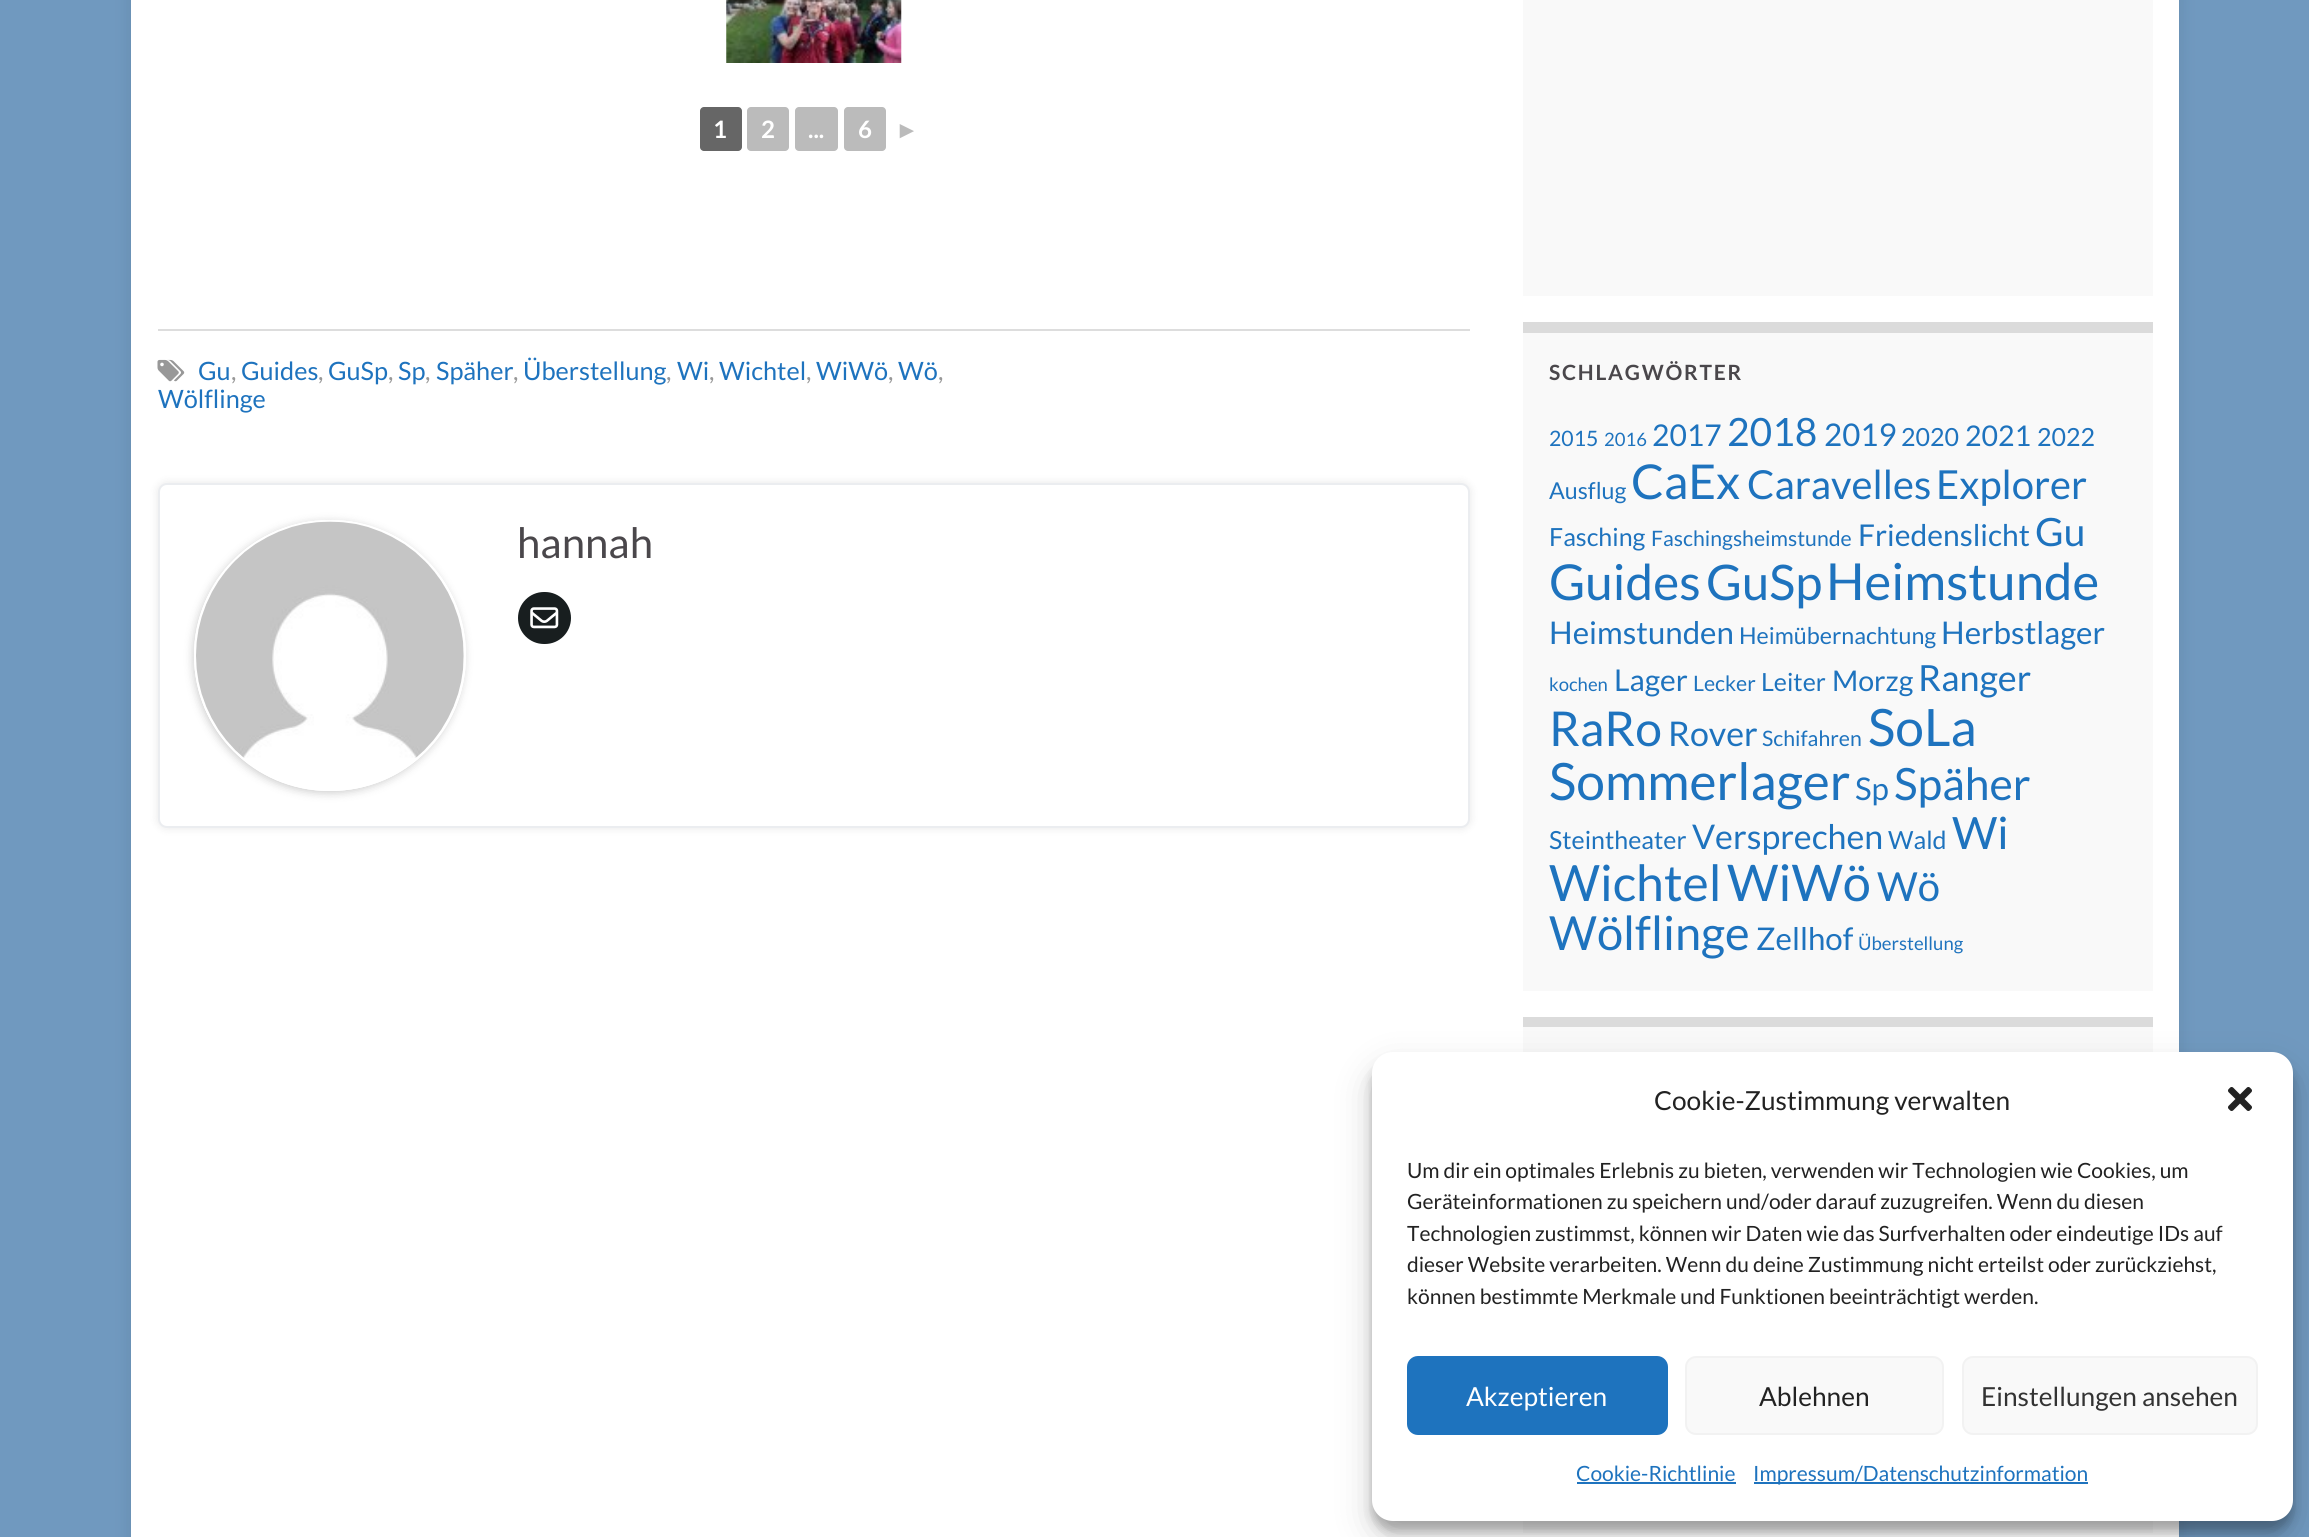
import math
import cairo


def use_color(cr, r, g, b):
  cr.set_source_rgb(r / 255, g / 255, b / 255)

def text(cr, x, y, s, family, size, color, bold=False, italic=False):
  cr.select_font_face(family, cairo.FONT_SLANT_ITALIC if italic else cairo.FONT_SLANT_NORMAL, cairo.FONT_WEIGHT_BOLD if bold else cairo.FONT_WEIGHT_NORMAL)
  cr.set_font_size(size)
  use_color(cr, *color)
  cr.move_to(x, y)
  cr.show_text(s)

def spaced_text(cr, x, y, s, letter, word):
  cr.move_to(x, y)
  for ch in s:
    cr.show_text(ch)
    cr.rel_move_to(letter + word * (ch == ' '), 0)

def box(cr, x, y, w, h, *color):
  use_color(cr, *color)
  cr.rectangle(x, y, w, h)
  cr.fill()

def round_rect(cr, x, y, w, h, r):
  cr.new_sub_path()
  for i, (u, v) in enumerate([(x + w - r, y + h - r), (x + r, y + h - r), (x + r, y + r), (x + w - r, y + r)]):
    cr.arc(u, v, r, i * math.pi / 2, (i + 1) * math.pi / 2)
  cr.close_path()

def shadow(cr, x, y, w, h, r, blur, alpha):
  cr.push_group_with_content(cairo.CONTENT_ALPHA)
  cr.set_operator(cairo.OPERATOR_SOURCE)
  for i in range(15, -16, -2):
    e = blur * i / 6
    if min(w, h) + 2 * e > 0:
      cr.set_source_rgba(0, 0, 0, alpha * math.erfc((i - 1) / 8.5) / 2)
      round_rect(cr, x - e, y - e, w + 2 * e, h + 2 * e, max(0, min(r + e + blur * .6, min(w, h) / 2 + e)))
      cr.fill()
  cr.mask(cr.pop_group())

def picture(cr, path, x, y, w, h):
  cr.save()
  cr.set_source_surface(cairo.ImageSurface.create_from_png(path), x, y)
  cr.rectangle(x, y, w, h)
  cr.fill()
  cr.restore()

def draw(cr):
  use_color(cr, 112, 153, 191)
  cr.paint()
  use_color(cr, 0, 0, 0)
  shadow(cr, 131, -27, 2048, 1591, 0, 9, 0.1)
  box(cr, 131, 0, 2048, 1537, 255, 255, 255)
  picture(cr, "img_01.png", 726, 0, 176, 63)
  use_color(cr, 102, 102, 102)
  round_rect(cr, 700, 107, 42, 44, 4)
  cr.fill()
  use_color(cr, 187, 187, 187)
  round_rect(cr, 747, 107, 42, 44, 4)
  cr.fill()
  round_rect(cr, 795, 107, 43, 44, 4)
  cr.fill()
  round_rect(cr, 844, 107, 42, 44, 4)
  cr.fill()
  box(cr, 158, 329, 1312, 2, 221, 221, 221)
  picture(cr, "img_02.png", 157, 359, 28, 23)
  use_color(cr, 0, 0, 0)
  shadow(cr, 158, 483, 1312, 345, 9, 4.5, 0.1)
  use_color(cr, 255, 255, 255)
  round_rect(cr, 159, 484, 1310, 343, 8)
  cr.fill_preserve()
  use_color(cr, 235, 237, 240)
  cr.stroke()
  cr.save()
  cr.set_fill_rule(cairo.FILL_RULE_EVEN_ODD)
  cr.new_path()
  cr.move_to(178, 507)
  cr.line_to(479, 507)
  cr.line_to(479, 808)
  cr.line_to(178, 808)
  cr.close_path()
  cr.move_to(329.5, 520)
  cr.line_to(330.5, 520)
  cr.curve_to(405.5, 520, 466, 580.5, 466, 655.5)
  cr.curve_to(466, 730.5, 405.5, 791, 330.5, 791)
  cr.line_to(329.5, 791)
  cr.curve_to(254.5, 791, 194, 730.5, 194, 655.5)
  cr.curve_to(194, 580.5, 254.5, 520, 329.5, 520)
  cr.close_path()
  cr.clip()
  use_color(cr, 0, 0, 0)
  shadow(cr, 193, 522, 271, 271, 135.5, 4.5, 0.2)
  cr.restore()
  round_rect(cr, 195, 521, 270, 269, 134.5)
  use_color(cr, 255, 255, 255)
  cr.stroke()
  picture(cr, "img_03.png", 196, 521, 268, 237)
  use_color(cr, 24, 30, 31)
  round_rect(cr, 518, 592, 53, 52, 26)
  cr.fill()
  picture(cr, "img_04.png", 530, 607, 29, 22)
  box(cr, 1523, 0, 630, 296, 249, 249, 249)
  box(cr, 1523, 333, 630, 658, 249, 249, 249)
  box(cr, 1523, 322, 630, 11, 219, 219, 219)
  box(cr, 1523, 1027, 630, 25, 249, 249, 249)
  box(cr, 1523, 1017, 630, 10, 219, 219, 219)
  box(cr, 1523, 1521, 630, 12, 249, 249, 249)
  use_color(cr, 0, 0, 0)
  shadow(cr, 1372, 1062, 921, 469, 21, 5, 0.23)
  shadow(cr, 1372, 1069, 921, 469, 21, 17.5, 0.19)
  use_color(cr, 255, 255, 255)
  round_rect(cr, 1372, 1052, 921, 469, 21)
  cr.fill()
  picture(cr, "img_05.png", 2228, 1087, 24, 24)
  use_color(cr, 30, 115, 190)
  round_rect(cr, 1408, 1357, 259, 77, 10)
  cr.fill_preserve()
  cr.stroke()
  use_color(cr, 249, 249, 249)
  round_rect(cr, 1686, 1357, 257, 77, 10)
  cr.fill_preserve()
  use_color(cr, 242, 242, 242)
  cr.stroke()
  use_color(cr, 249, 249, 249)
  round_rect(cr, 1963, 1357, 294, 77, 10)
  cr.fill_preserve()
  use_color(cr, 242, 242, 242)
  cr.stroke()
  box(cr, 1577, 1482, 159, 2, 30, 115, 190)
  box(cr, 1754, 1482, 334, 2, 30, 115, 190)
  text(cr, 713, 138, "1", "Lato", 24, (255, 255, 255), bold=True)
  text(cr, 761, 138, "2", "Lato", 24, (255, 255, 255), bold=True)
  text(cr, 808, 138, "...", "Lato", 24, (255, 255, 255), bold=True)
  text(cr, 858, 138, "6", "Lato", 24, (255, 255, 255), bold=True)
  text(cr, 895, 138, "►", "Liberation Sans", 24, (187, 187, 187), bold=True)
  text(cr, 198, 380, "Gu", "Lato", 25.25, (30, 115, 190))
  text(cr, 231, 380, ",", "Lato", 25.25, (152, 152, 152))
  text(cr, 241, 380, "Guides", "Lato", 25.25, (30, 115, 190))
  text(cr, 318, 380, ",", "Lato", 25.25, (152, 152, 152))
  text(cr, 328, 380, "GuSp", "Lato", 25.25, (30, 115, 190))
  text(cr, 388, 380, ",", "Lato", 25.25, (152, 152, 152))
  text(cr, 398, 380, "Sp", "Lato", 25.25, (30, 115, 190))
  text(cr, 425, 380, ",", "Lato", 25.25, (152, 152, 152))
  text(cr, 436, 380, "Späher", "Lato", 25.25, (30, 115, 190))
  text(cr, 513, 380, ",", "Lato", 25.25, (152, 152, 152))
  text(cr, 523, 380, "Überstellung", "Lato", 25.25, (30, 115, 190))
  text(cr, 666, 380, ",", "Lato", 25.25, (152, 152, 152))
  text(cr, 677, 380, "Wi", "Lato", 25.25, (30, 115, 190))
  text(cr, 709, 380, ",", "Lato", 25.25, (152, 152, 152))
  text(cr, 719, 380, "Wichtel", "Lato", 25.25, (30, 115, 190))
  text(cr, 806, 380, ",", "Lato", 25.25, (152, 152, 152))
  text(cr, 816, 380, "WiWö", "Lato", 25.25, (30, 115, 190))
  text(cr, 888, 380, ",", "Lato", 25.25, (152, 152, 152))
  text(cr, 898, 380, "Wö", "Lato", 25.25, (30, 115, 190))
  text(cr, 938, 380, ",", "Lato", 25.25, (152, 152, 152))
  text(cr, 158, 408, "Wölflinge", "Lato", 25.25, (30, 115, 190))
  text(cr, 517, 558, "hannah", "Lato", 42, (74, 71, 75))
  cr.select_font_face("Lato", cairo.FONT_SLANT_NORMAL, cairo.FONT_WEIGHT_BOLD)
  cr.set_font_size(21)
  spaced_text(cr, 1549, 380, "SCHLAGWÖRTER", 1.75, 0)
  text(cr, 1549, 446, "2015", "Lato", 21.25, (30, 115, 190))
  text(cr, 1604, 446, "2016", "Lato", 18.5, (30, 115, 190))
  text(cr, 1652, 446, "2017", "Lato", 30, (30, 115, 190))
  text(cr, 1727, 446, "2018", "Lato", 39, (30, 115, 190))
  text(cr, 1824, 446, "2019", "Lato", 31.25, (30, 115, 190))
  text(cr, 1901, 446, "2020", "Lato", 25, (30, 115, 190))
  text(cr, 1965, 446, "2021", "Lato", 28.5, (30, 115, 190))
  text(cr, 2037, 446, "2022", "Lato", 25, (30, 115, 190))
  text(cr, 1549, 499, "Ausflug", "Lato", 23.25, (30, 115, 190))
  text(cr, 1631, 499, "CaEx", "Lato", 48, (30, 115, 190))
  text(cr, 1747, 499, "Caravelles", "Lato", 40, (30, 115, 190))
  text(cr, 1936, 499, "Explorer", "Lato", 40, (30, 115, 190))
  text(cr, 1549, 546, "Fasching", "Lato", 25, (30, 115, 190))
  text(cr, 1651, 546, "Faschingsheimstunde", "Lato", 21.25, (30, 115, 190))
  text(cr, 1858, 546, "Friedenslicht", "Lato", 30, (30, 115, 190))
  text(cr, 2035, 546, "Gu", "Lato", 39, (30, 115, 190))
  text(cr, 1549, 600, "Guides", "Lato", 49.5, (30, 115, 190))
  text(cr, 1706, 600, "GuSp", "Lato", 49, (30, 115, 190))
  text(cr, 1826, 600, "Heimstunde", "Lato", 51, (30, 115, 190))
  text(cr, 1549, 644, "Heimstunden", "Lato", 31.25, (30, 115, 190))
  text(cr, 1739, 644, "Heimübernachtung", "Lato", 23.25, (30, 115, 190))
  text(cr, 1941, 644, "Herbstlager", "Lato", 31.25, (30, 115, 190))
  text(cr, 1549, 691, "kochen", "Lato", 18.5, (30, 115, 190))
  text(cr, 1614, 691, "Lager", "Lato", 30, (30, 115, 190))
  text(cr, 1693, 691, "Lecker", "Lato", 21.25, (30, 115, 190))
  text(cr, 1761, 691, "Leiter", "Lato", 25, (30, 115, 190))
  text(cr, 1832, 691, "Morzg", "Lato", 28.5, (30, 115, 190))
  text(cr, 1918, 691, "Ranger", "Lato", 36, (30, 115, 190))
  text(cr, 1549, 746, "RaRo", "Lato", 48, (30, 115, 190))
  text(cr, 1668, 746, "Rover", "Lato", 34, (30, 115, 190))
  text(cr, 1762, 746, "Schifahren", "Lato", 21.25, (30, 115, 190))
  text(cr, 1868, 746, "SoLa", "Lato", 51.5, (30, 115, 190))
  text(cr, 1549, 800, "Sommerlager", "Lato", 51.5, (30, 115, 190))
  text(cr, 1855, 800, "Sp", "Lato", 31.25, (30, 115, 190))
  text(cr, 1894, 800, "Späher", "Lato", 44.5, (30, 115, 190))
  text(cr, 1549, 849, "Steintheater", "Lato", 25, (30, 115, 190))
  text(cr, 1692, 849, "Versprechen", "Lato", 34, (30, 115, 190))
  text(cr, 1888, 849, "Wald", "Lato", 25, (30, 115, 190))
  text(cr, 1952, 849, "Wi", "Lato", 44.5, (30, 115, 190))
  text(cr, 1549, 901, "Wichtel", "Lato", 50, (30, 115, 190))
  text(cr, 1727, 901, "WiWö", "Lato", 50.5, (30, 115, 190))
  text(cr, 1877, 901, "Wö", "Lato", 40, (30, 115, 190))
  text(cr, 1549, 950, "Wölflinge", "Lato", 47, (30, 115, 190))
  text(cr, 1756, 950, "Zellhof", "Lato", 31.25, (30, 115, 190))
  text(cr, 1858, 950, "Überstellung", "Lato", 18.5, (30, 115, 190))
  text(cr, 1654, 1110, "Cookie-Zustimmung verwalten", "Lato", 26.25, (34, 34, 34))
  text(cr, 1407, 1178, "Um dir ein optimales Erlebnis zu bieten, verwenden wir Technologien wie Cookies, um", "Lato", 21, (34, 34, 34))
  text(cr, 1407, 1209, "Geräteinformationen zu speichern und/oder darauf zuzugreifen. Wenn du diesen", "Lato", 21, (34, 34, 34))
  text(cr, 1407, 1241, "Technologien zustimmst, können wir Daten wie das Surfverhalten oder eindeutige IDs auf", "Lato", 21, (34, 34, 34))
  text(cr, 1407, 1272, "dieser Website verarbeiten. Wenn du deine Zustimmung nicht erteilst oder zurückziehst,", "Lato", 21, (34, 34, 34))
  text(cr, 1407, 1304, "können bestimmte Merkmale und Funktionen beeinträchtigt werden.", "Lato", 21, (34, 34, 34))
  text(cr, 1466, 1406, "Akzeptieren", "Lato", 26.25, (255, 255, 255))
  text(cr, 1759, 1406, "Ablehnen", "Lato", 26.25, (34, 34, 34))
  text(cr, 1981, 1406, "Einstellungen ansehen", "Lato", 26.25, (51, 51, 51))
  text(cr, 1576, 1481, "Cookie-Richtlinie", "Lato", 21, (30, 115, 190))
  text(cr, 1753, 1481, "Impressum/Datenschutzinformation", "Lato", 21, (30, 115, 190))


surface = cairo.ImageSurface(cairo.FORMAT_RGB24, 2309, 1537)
cr = cairo.Context(surface)
options = cairo.FontOptions()
options.set_hint_metrics(cairo.HINT_METRICS_OFF)
options.set_hint_style(cairo.HINT_STYLE_NONE)
cr.set_font_options(options)
cr.set_miter_limit(4)
draw(cr)
surface.write_to_png("out.png")
